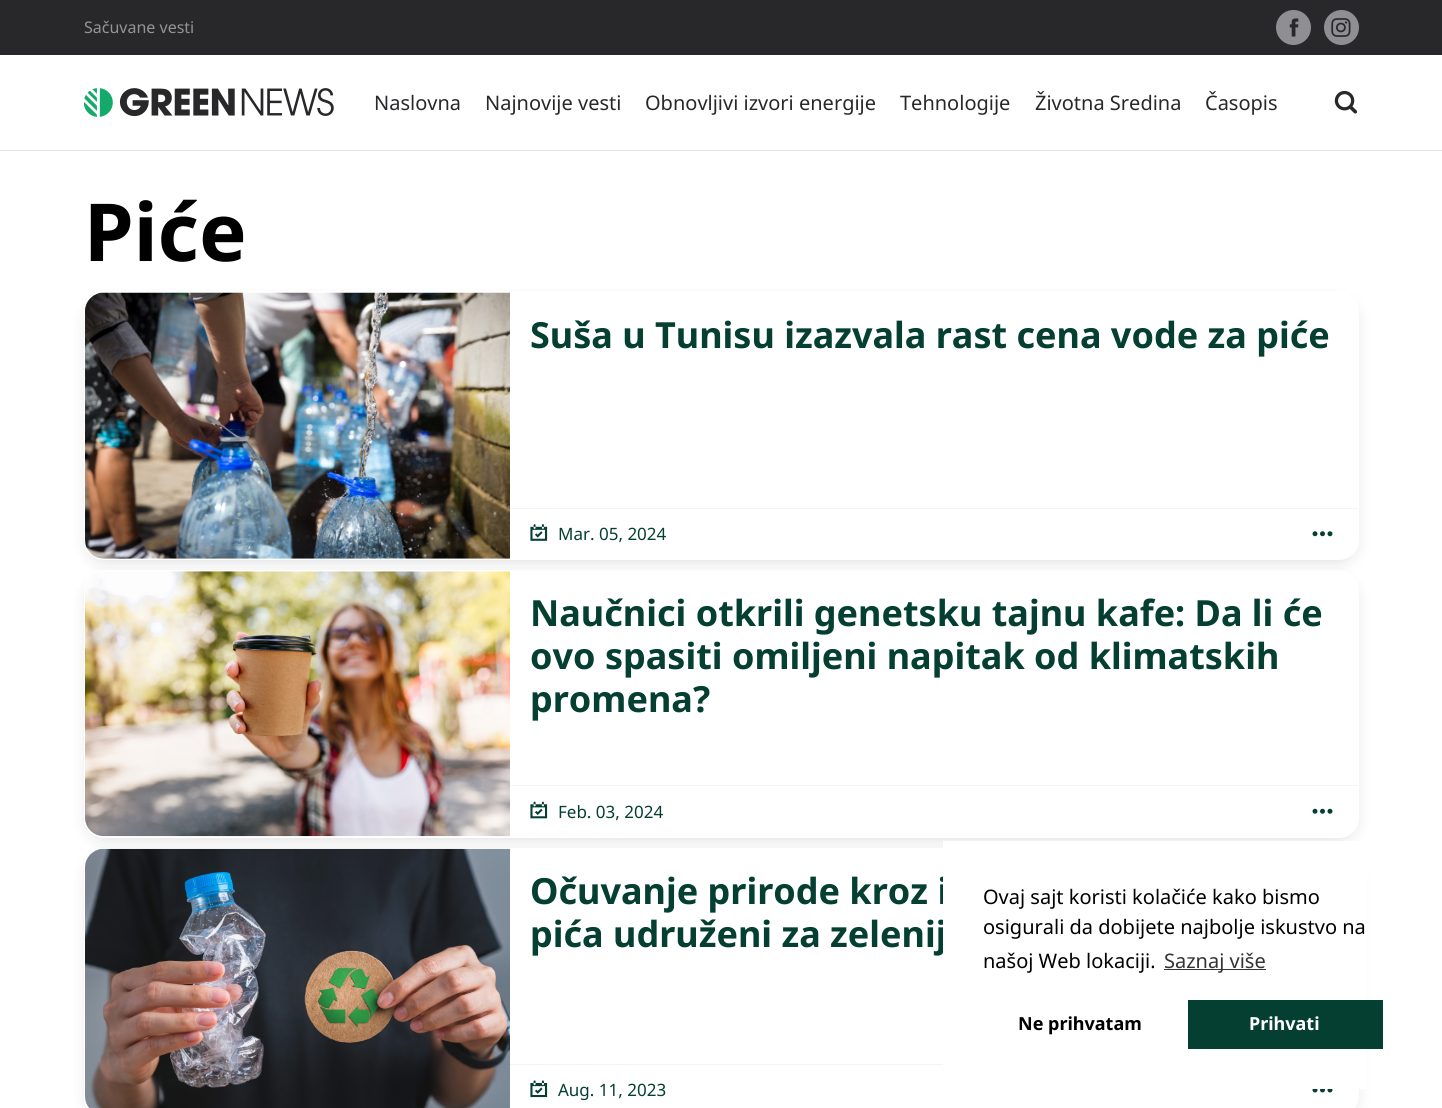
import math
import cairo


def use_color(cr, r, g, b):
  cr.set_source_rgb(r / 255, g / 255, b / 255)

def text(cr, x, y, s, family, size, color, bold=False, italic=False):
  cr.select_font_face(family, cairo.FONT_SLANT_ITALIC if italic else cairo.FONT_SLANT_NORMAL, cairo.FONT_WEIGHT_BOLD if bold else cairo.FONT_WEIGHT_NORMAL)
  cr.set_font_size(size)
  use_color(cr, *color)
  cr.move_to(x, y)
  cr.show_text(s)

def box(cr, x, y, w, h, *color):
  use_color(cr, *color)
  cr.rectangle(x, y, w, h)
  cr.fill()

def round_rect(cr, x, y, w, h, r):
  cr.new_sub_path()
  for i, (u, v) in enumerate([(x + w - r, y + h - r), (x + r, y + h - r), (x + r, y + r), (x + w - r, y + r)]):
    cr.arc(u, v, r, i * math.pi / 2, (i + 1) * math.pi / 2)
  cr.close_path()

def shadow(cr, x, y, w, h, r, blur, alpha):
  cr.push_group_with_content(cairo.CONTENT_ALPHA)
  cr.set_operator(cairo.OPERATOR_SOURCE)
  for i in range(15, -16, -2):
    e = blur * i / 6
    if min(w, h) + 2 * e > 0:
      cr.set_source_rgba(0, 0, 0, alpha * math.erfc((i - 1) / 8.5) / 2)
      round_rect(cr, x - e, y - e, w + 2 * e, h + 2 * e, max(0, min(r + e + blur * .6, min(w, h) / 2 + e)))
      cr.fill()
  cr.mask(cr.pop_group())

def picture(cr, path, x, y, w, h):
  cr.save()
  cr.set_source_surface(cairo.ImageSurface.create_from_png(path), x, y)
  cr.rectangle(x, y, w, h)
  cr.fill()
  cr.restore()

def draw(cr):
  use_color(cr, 255, 255, 255)
  cr.paint()
  box(cr, 0, 0, 1442, 55, 40, 40, 43)
  use_color(cr, 142, 142, 147)
  cr.arc(1293.5, 27.5, 17.5, 0, 2 * math.pi)
  cr.fill()
  picture(cr, "img_01.png", 1289, 18, 10, 19)
  cr.arc(1341.5, 27.5, 17.5, 0, 2 * math.pi)
  cr.fill()
  picture(cr, "img_02.png", 1331, 18, 20, 19)
  box(cr, 0, 150, 1442, 1, 226, 226, 226)
  picture(cr, "img_03.png", 84, 88, 250, 29)
  picture(cr, "img_04.png", 1334, 90, 24, 24)
  use_color(cr, 0, 0, 0)
  shadow(cr, 90, 304, 1263, 256, 14, 9.5, 0.15)
  use_color(cr, 255, 255, 255)
  round_rect(cr, 84, 291, 1275, 269, 20)
  cr.fill()
  picture(cr, "img_05.png", 85, 292, 425, 267)
  box(cr, 510, 508, 848, 1, 246, 244, 240)
  picture(cr, "img_06.png", 530, 524, 18, 17)
  picture(cr, "img_07.png", 1312, 531, 21, 6)
  use_color(cr, 0, 0, 0)
  shadow(cr, 90, 583, 1263, 255, 14, 9.5, 0.15)
  use_color(cr, 255, 255, 255)
  round_rect(cr, 84, 570, 1275, 268, 20)
  cr.fill()
  picture(cr, "img_08.png", 85, 571, 425, 266)
  box(cr, 510, 785, 848, 1, 246, 244, 240)
  picture(cr, "img_09.png", 530, 801, 18, 18)
  picture(cr, "img_10.png", 1312, 808, 21, 6)
  use_color(cr, 0, 0, 0)
  shadow(cr, 90, 860, 1263, 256, 14, 9.5, 0.15)
  use_color(cr, 255, 255, 255)
  round_rect(cr, 84, 848, 1275, 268, 20)
  cr.fill()
  picture(cr, "img_11.png", 85, 848, 425, 260)
  box(cr, 510, 1064, 433, 1, 246, 244, 240)
  picture(cr, "img_12.png", 530, 1080, 18, 18)
  picture(cr, "img_13.png", 1312, 1089, 21, 4)
  text(cr, 84, 33, "Sačuvane vesti", "Noto Sans", 16, (148, 148, 149))
  text(cr, 374, 110, "Naslovna", "Noto Sans", 20, (40, 40, 43))
  text(cr, 485, 110, "Najnovije vesti", "Noto Sans", 20, (40, 40, 43))
  text(cr, 645, 110, "Obnovljivi izvori energije", "Noto Sans", 20, (40, 40, 43))
  text(cr, 900, 110, "Tehnologije", "Noto Sans", 20, (40, 40, 43))
  text(cr, 1035, 110, "Životna Sredina", "Noto Sans", 20, (40, 40, 43))
  text(cr, 1205, 110, "Časopis", "Noto Sans", 20, (40, 40, 43))
  text(cr, 84, 261, "Piće", "Noto Sans", 80, (0, 0, 0), bold=True)
  text(cr, 530, 348, "Suša u Tunisu izazvala rast cena vode za piće", "Noto Sans", 36, (4, 63, 50), bold=True)
  text(cr, 558, 540, "Mar. 05, 2024", "Noto Sans", 17, (4, 63, 50))
  text(cr, 530, 626, "Naučnici otkrili genetsku tajnu kafe: Da li će", "Noto Sans", 36, (4, 63, 50), bold=True)
  text(cr, 530, 669, "ovo spasiti omiljeni napitak od klimatskih", "Noto Sans", 36, (4, 63, 50), bold=True)
  text(cr, 530, 712, "promena?", "Noto Sans", 36, (4, 63, 50), bold=True)
  text(cr, 558, 818, "Feb. 03, 2024", "Noto Sans", 17, (4, 63, 50))
  text(cr, 530, 904, "Očuvanje prirode kroz i", "Noto Sans", 36, (4, 63, 50), bold=True)
  text(cr, 530, 947, "pića udruženi za zelenij", "Noto Sans", 36, (4, 63, 50), bold=True)
  text(cr, 558, 1096, "Aug. 11, 2023", "Noto Sans", 17, (4, 63, 50))
  box(cr, 943, 841, 424, 248, 255, 255, 255)
  text(cr, 983, 904, "Ovaj sajt koristi kolačiće kako bismo", "Noto Sans", 20, (0, 0, 0))
  text(cr, 983, 934, "osigurali da dobijete najbolje iskustvo na", "Noto Sans", 20, (0, 0, 0))
  text(cr, 983, 968, "našoj Web lokaciji.", "Noto Sans", 20, (0, 0, 0))
  box(cr, 1164, 969, 102, 1, 51, 51, 51)
  text(cr, 1164, 968, "Saznaj više", "Noto Sans", 20, (51, 51, 51))
  text(cr, 1018, 1030, "Ne prihvatam", "Noto Sans", 18, (0, 0, 0), bold=True)
  box(cr, 1188, 1000, 195, 49, 4, 63, 50)
  text(cr, 1249, 1030, "Prihvati", "Noto Sans", 18, (255, 255, 255), bold=True)


surface = cairo.ImageSurface(cairo.FORMAT_RGB24, 1442, 1108)
cr = cairo.Context(surface)
options = cairo.FontOptions()
options.set_hint_metrics(cairo.HINT_METRICS_OFF)
options.set_hint_style(cairo.HINT_STYLE_NONE)
cr.set_font_options(options)
cr.set_miter_limit(4)
draw(cr)
surface.write_to_png("out.png")
